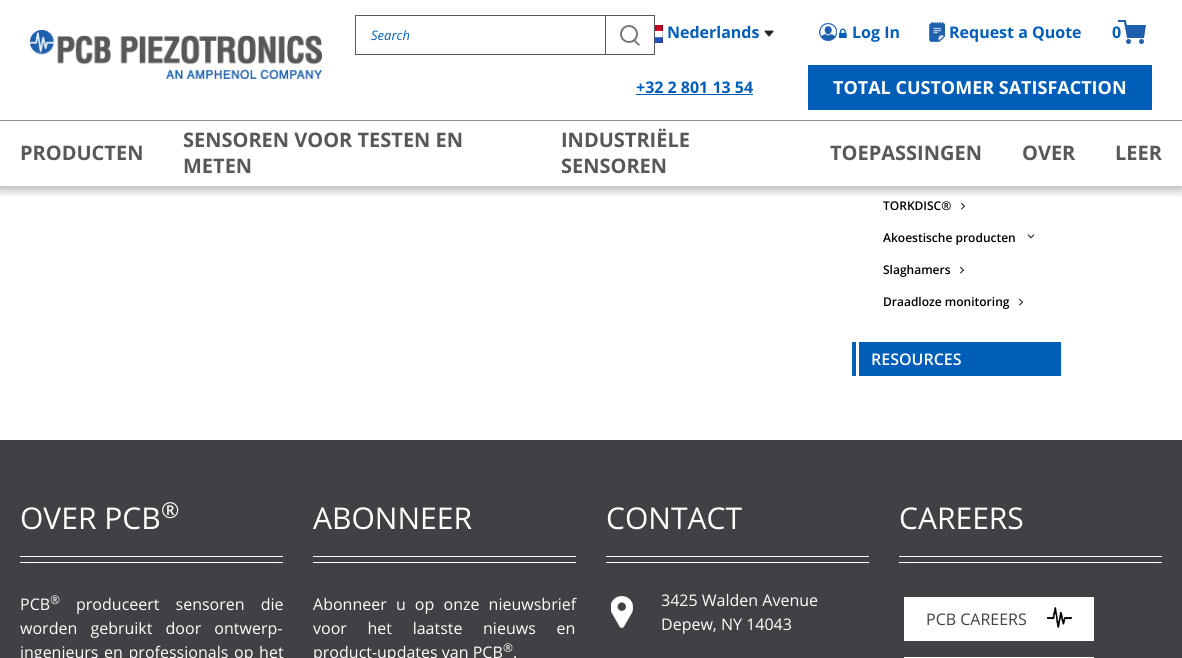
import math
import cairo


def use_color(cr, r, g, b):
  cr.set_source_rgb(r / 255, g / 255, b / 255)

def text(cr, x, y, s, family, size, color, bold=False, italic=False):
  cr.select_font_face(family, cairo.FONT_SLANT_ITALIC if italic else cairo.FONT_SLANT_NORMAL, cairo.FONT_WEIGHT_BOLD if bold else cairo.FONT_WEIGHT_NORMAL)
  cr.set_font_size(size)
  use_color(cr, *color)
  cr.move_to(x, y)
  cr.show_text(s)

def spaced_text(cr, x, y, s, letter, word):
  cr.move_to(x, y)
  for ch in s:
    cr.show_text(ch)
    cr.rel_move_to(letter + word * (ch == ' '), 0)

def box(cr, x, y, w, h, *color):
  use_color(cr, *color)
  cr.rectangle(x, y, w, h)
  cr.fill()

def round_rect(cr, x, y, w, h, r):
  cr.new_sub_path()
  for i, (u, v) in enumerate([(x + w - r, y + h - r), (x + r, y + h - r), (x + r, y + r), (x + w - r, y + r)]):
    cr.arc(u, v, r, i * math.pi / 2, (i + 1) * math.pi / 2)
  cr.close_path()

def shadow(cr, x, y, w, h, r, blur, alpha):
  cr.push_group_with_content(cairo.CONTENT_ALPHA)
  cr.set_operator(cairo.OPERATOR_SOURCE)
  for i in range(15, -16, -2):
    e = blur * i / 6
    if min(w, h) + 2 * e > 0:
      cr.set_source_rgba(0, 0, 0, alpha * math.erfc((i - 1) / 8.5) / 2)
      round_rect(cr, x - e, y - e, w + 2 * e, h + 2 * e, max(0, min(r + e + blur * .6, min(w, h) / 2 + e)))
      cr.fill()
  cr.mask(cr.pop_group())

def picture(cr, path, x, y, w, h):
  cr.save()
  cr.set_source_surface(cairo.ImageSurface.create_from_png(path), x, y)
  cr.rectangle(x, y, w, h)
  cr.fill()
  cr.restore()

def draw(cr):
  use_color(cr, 255, 255, 255)
  cr.paint()
  picture(cr, "img_09.png", 961, 202, 4, 8)
  cr.save()
  cr.rectangle(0, 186, 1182, 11)
  cr.clip()
  use_color(cr, 0, 0, 0)
  shadow(cr, -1, 2, 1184, 188, 0, 5, 0.3)
  cr.restore()
  picture(cr, "img_01.png", 30, 30, 292, 49)
  picture(cr, "img_02.png", 655, 25, 8, 18)
  picture(cr, "img_03.png", 764, 30, 10, 7)
  picture(cr, "img_04.png", 819, 23, 18, 18)
  picture(cr, "img_05.png", 839, 28, 8, 10)
  picture(cr, "img_06.png", 929, 22, 16, 20)
  picture(cr, "img_07.png", 1118, 20, 28, 24)
  box(cr, 0, 120, 1182, 1, 140, 141, 142)
  cr.rectangle(355.5, 15.5, 299, 39)
  use_color(cr, 88, 88, 91)
  cr.set_line_width(1)
  cr.stroke()
  picture(cr, "img_08.png", 620, 25, 20, 21)
  cr.rectangle(605.5, 15.5, 49, 39)
  cr.stroke()
  box(cr, 636, 94, 117, 1, 0, 94, 184)
  box(cr, 808, 65, 344, 45, 0, 94, 184)
  picture(cr, "img_10.png", 1027, 234, 8, 5)
  picture(cr, "img_09.png", 960, 266, 4, 8)
  picture(cr, "img_09.png", 1019, 298, 4, 8)
  box(cr, 852, 342, 209, 34, 0, 94, 184)
  box(cr, 856, 342, 3, 34, 255, 255, 255)
  box(cr, 0, 440, 1182, 218, 64, 65, 69)
  box(cr, 20, 556, 263, 1, 255, 255, 255)
  box(cr, 20, 562, 263, 1, 255, 255, 255)
  box(cr, 313, 556, 263, 1, 255, 255, 255)
  box(cr, 313, 562, 263, 1, 255, 255, 255)
  box(cr, 606, 556, 263, 1, 255, 255, 255)
  box(cr, 606, 562, 263, 1, 255, 255, 255)
  picture(cr, "img_11.png", 611, 596, 22, 32)
  box(cr, 899, 556, 263, 1, 255, 255, 255)
  box(cr, 899, 562, 263, 1, 255, 255, 255)
  box(cr, 904, 597, 190, 44, 255, 255, 255)
  picture(cr, "img_12.png", 1047, 607, 25, 21)
  box(cr, 904, 657, 190, 1, 255, 255, 255)
  text(cr, 667, 38, "Nederlands", "Open Sans", 16, (0, 94, 184), bold=True)
  text(cr, 852, 38, "Log In", "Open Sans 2", 16, (0, 94, 184), bold=True)
  text(cr, 949, 38, "Request a Quote", "Open Sans", 16, (0, 94, 184), bold=True)
  text(cr, 1112, 38, "0", "Open Sans", 16, (0, 94, 184), bold=True)
  text(cr, 20, 160, "PRODUCTEN", "Open Sans", 20, (88, 88, 91), bold=True)
  text(cr, 183, 147, "SENSOREN VOOR TESTEN EN", "Open Sans", 20, (88, 88, 91), bold=True)
  text(cr, 183, 173, "METEN", "Open Sans", 20, (88, 88, 91), bold=True)
  text(cr, 561, 147, "INDUSTRIËLE", "Open Sans", 20, (88, 88, 91), bold=True)
  text(cr, 561, 173, "SENSOREN", "Open Sans", 20, (88, 88, 91), bold=True)
  text(cr, 830, 160, "TOEPASSINGEN", "Open Sans", 20, (88, 88, 91), bold=True)
  text(cr, 1022, 160, "OVER", "Open Sans", 20, (88, 88, 91), bold=True)
  text(cr, 1115, 160, "LEER", "Open Sans", 20, (88, 88, 91), bold=True)
  text(cr, 371, 40, "Search", "Open Sans", 13, (0, 94, 184), italic=True)
  text(cr, 636, 93, "+32 2 801 13 54", "Open Sans 2", 16, (0, 94, 184), bold=True)
  text(cr, 833, 94, "TOTAL CUSTOMER SATISFACTION", "Open Sans", 18, (255, 255, 255), bold=True)
  text(cr, 883, 210, "TORKDISC®", "Open Sans SemiBold", 12, (0, 0, 0))
  text(cr, 883, 242, "Akoestische producten", "Open Sans SemiBold", 12, (0, 0, 0))
  text(cr, 883, 274, "Slaghamers", "Open Sans SemiBold", 12, (0, 0, 0))
  text(cr, 883, 306, "Draadloze monitoring", "Open Sans SemiBold", 12, (0, 0, 0))
  text(cr, 871, 365, "RESOURCES", "Open Sans 2 SemiBold", 16, (255, 255, 255))
  text(cr, 20, 529, "OVER PCB", "Open Sans", 30, (255, 255, 255))
  text(cr, 161, 518, "®", "Open Sans", 22, (255, 255, 255))
  text(cr, 20, 610, "PCB", "Open Sans", 16, (255, 255, 255))
  text(cr, 50, 604, "®", "Open Sans", 12, (255, 255, 255))
  cr.set_font_size(16)
  spaced_text(cr, 76, 610, "produceert sensoren die", 0, 12)
  spaced_text(cr, 20, 634, "worden gebruikt door ontwerp-", 0, 9)
  spaced_text(cr, 20, 658, "ingenieurs en professionals op het", 0, 1.5)
  text(cr, 313, 529, "ABONNEER", "Open Sans", 30, (255, 255, 255))
  cr.set_font_size(16)
  spaced_text(cr, 313, 610, "Abonneer u op onze nieuwsbrief", 0, 5)
  spaced_text(cr, 313, 634, "voor het laatste nieuws en", 0, 16.5)
  text(cr, 313, 658, "product-updates van PCB", "Open Sans", 16, (255, 255, 255))
  text(cr, 503, 652, "®", "Open Sans", 12, (255, 255, 255))
  text(cr, 513, 658, ".", "Open Sans", 16, (255, 255, 255))
  text(cr, 606, 529, "CONTACT", "Open Sans", 30, (255, 255, 255))
  text(cr, 661, 606, "3425 Walden Avenue", "Open Sans", 16, (255, 255, 255))
  text(cr, 661, 630, "Depew, NY 14043", "Open Sans", 16, (255, 255, 255))
  text(cr, 899, 529, "CAREERS", "Open Sans", 30, (255, 255, 255))
  text(cr, 926, 625, "PCB CAREERS", "Open Sans 2", 16, (64, 65, 69))


surface = cairo.ImageSurface(cairo.FORMAT_RGB24, 1182, 658)
cr = cairo.Context(surface)
options = cairo.FontOptions()
options.set_hint_metrics(cairo.HINT_METRICS_OFF)
options.set_hint_style(cairo.HINT_STYLE_NONE)
cr.set_font_options(options)
cr.set_miter_limit(4)
draw(cr)
surface.write_to_png("out.png")
